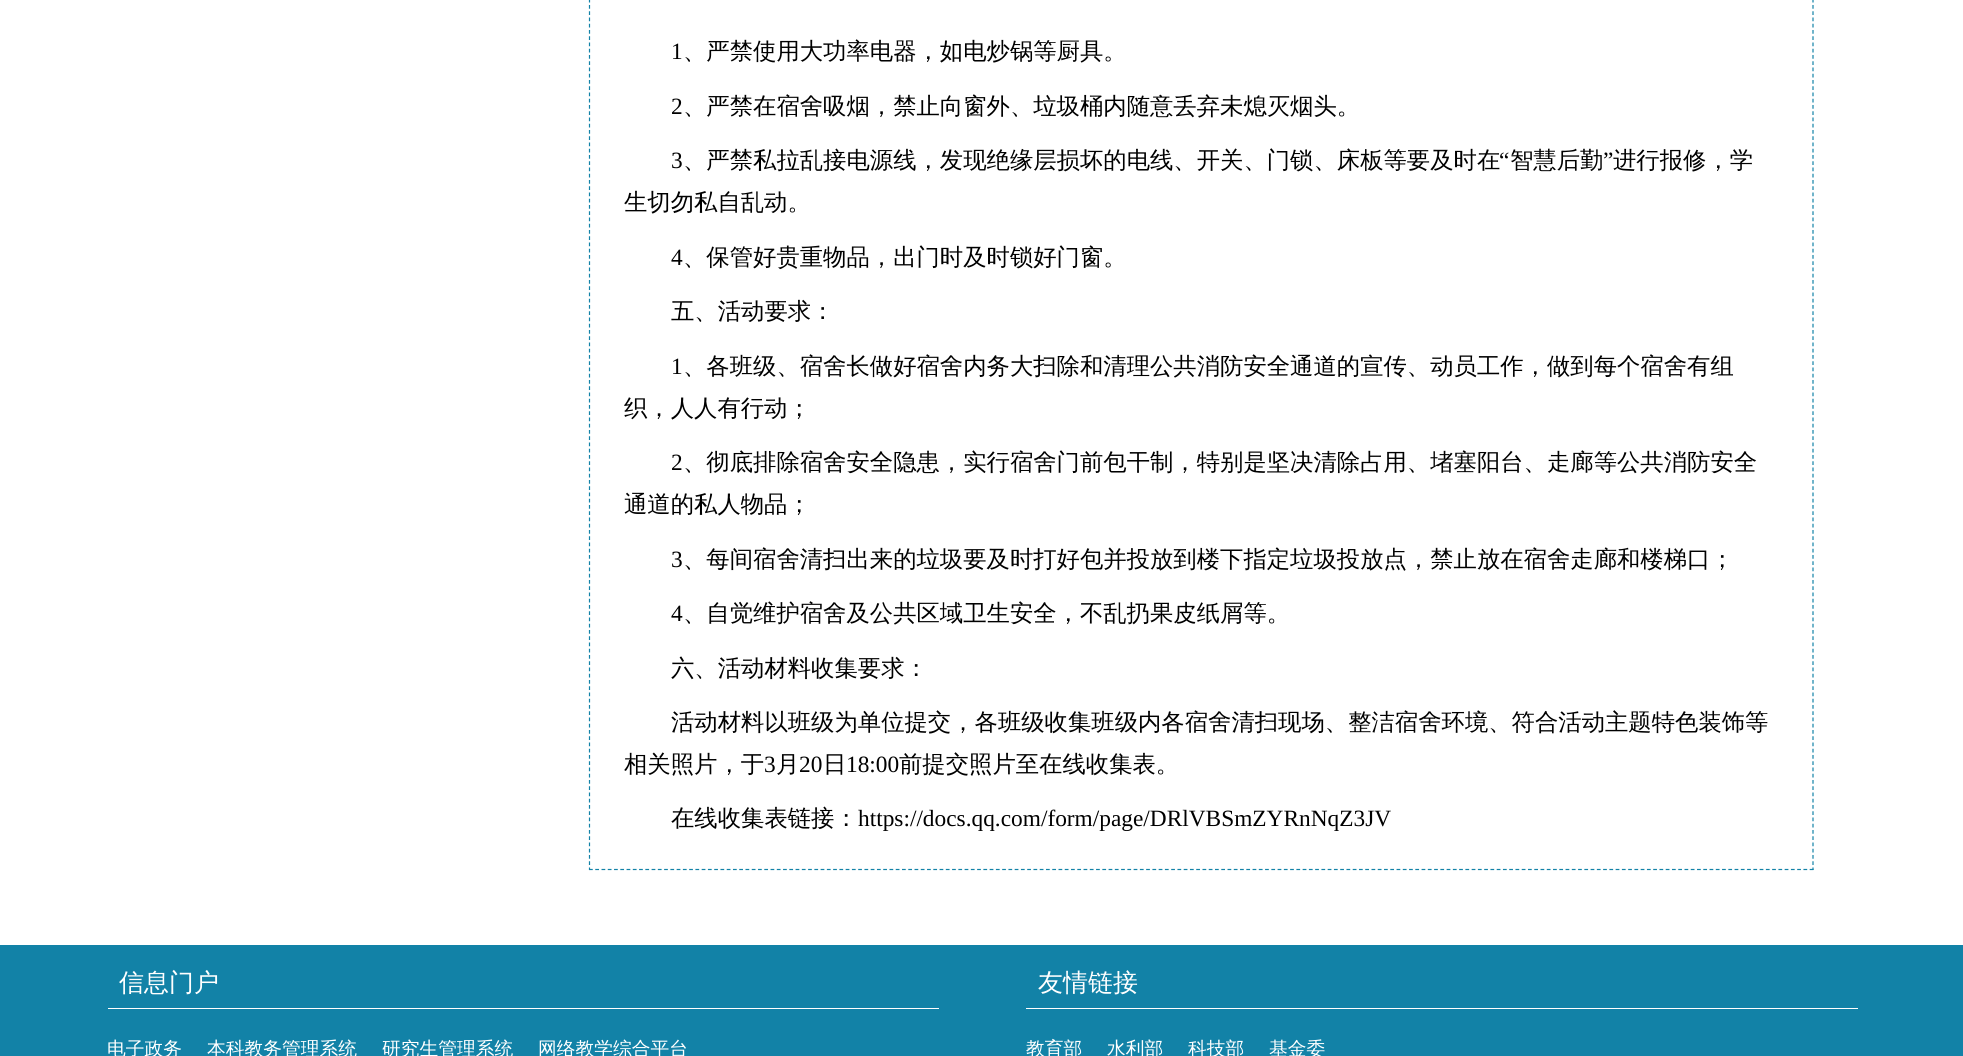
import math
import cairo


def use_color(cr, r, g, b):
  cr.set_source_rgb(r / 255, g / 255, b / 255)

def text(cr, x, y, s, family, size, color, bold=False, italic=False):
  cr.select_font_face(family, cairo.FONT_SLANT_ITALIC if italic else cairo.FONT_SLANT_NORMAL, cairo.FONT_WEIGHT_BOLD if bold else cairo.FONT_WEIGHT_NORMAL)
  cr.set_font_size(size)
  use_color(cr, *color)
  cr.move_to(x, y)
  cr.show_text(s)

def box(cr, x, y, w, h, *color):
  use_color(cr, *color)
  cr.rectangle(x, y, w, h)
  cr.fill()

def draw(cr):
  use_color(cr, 255, 255, 255)
  cr.paint()
  cr.new_path()
  cr.move_to(1813, -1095)
  cr.line_to(1813, 870)
  use_color(cr, 18, 130, 167)
  cr.set_line_width(1.2)
  cr.set_dash([3.75, 2.5])
  cr.stroke()
  cr.new_path()
  cr.move_to(589, 869.5)
  cr.line_to(1814, 869.5)
  cr.set_dash([3.75, 2.51])
  cr.stroke()
  cr.new_path()
  cr.move_to(589.5, -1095)
  cr.line_to(589.5, 870)
  cr.set_dash([3.75, 2.5])
  cr.stroke()
  box(cr, 0, 945, 1963, 111, 18, 130, 167)
  box(cr, 108, 1008, 831, 1, 255, 255, 255)
  box(cr, 1026, 1008, 832, 1, 255, 255, 255)
  text(cr, 671, 59, "1", "Liberation Serif", 23.35, (0, 0, 0))
  text(cr, 683, 59, "、严禁使用大功率电器，如电炒锅等厨具。", "WenQuanYi Zen Hei Medium", 23.35, (0, 0, 0))
  text(cr, 671, 114, "2", "Liberation Serif", 23.35, (0, 0, 0))
  text(cr, 683, 114, "、严禁在宿舍吸烟，禁止向窗外、垃圾桶内随意丢弃未熄灭烟头。", "WenQuanYi Zen Hei Medium", 23.35, (0, 0, 0))
  text(cr, 671, 168, "3", "Liberation Serif", 23.35, (0, 0, 0))
  text(cr, 683, 168, "、严禁私拉乱接电源线，发现绝缘层损坏的电线、开关、门锁、床板等要及时在", "WenQuanYi Zen Hei Medium", 23.35, (0, 0, 0))
  text(cr, 1499, 168, "“", "Liberation Serif", 23.35, (0, 0, 0))
  text(cr, 1510, 168, "智慧后勤", "WenQuanYi Zen Hei Medium", 23.35, (0, 0, 0))
  text(cr, 1603, 168, "”", "Liberation Serif", 23.35, (0, 0, 0))
  text(cr, 1613, 168, "进行报修，学", "WenQuanYi Zen Hei Medium", 23.35, (0, 0, 0))
  text(cr, 624, 210, "生切勿私自乱动。", "WenQuanYi Zen Hei Medium", 23.35, (0, 0, 0))
  text(cr, 671, 265, "4", "Liberation Serif", 23.35, (0, 0, 0))
  text(cr, 683, 265, "、保管好贵重物品，出门时及时锁好门窗。", "WenQuanYi Zen Hei Medium", 23.35, (0, 0, 0))
  text(cr, 671, 319, "五、活动要求：", "WenQuanYi Zen Hei Medium", 23.35, (0, 0, 0))
  text(cr, 671, 374, "1", "Liberation Serif", 23.35, (0, 0, 0))
  text(cr, 683, 374, "、各班级、宿舍长做好宿舍内务大扫除和清理公共消防安全通道的宣传、动员工作，做到每个宿舍有组", "WenQuanYi Zen Hei Medium", 23.35, (0, 0, 0))
  text(cr, 624, 416, "织，人人有行动；", "WenQuanYi Zen Hei Medium", 23.35, (0, 0, 0))
  text(cr, 671, 470, "2", "Liberation Serif", 23.35, (0, 0, 0))
  text(cr, 683, 470, "、彻底排除宿舍安全隐患，实行宿舍门前包干制，特别是坚决清除占用、堵塞阳台、走廊等公共消防安全", "WenQuanYi Zen Hei Medium", 23.35, (0, 0, 0))
  text(cr, 624, 512, "通道的私人物品；", "WenQuanYi Zen Hei Medium", 23.35, (0, 0, 0))
  text(cr, 671, 567, "3", "Liberation Serif", 23.35, (0, 0, 0))
  text(cr, 683, 567, "、每间宿舍清扫出来的垃圾要及时打好包并投放到楼下指定垃圾投放点，禁止放在宿舍走廊和楼梯口；", "WenQuanYi Zen Hei Medium", 23.35, (0, 0, 0))
  text(cr, 671, 621, "4", "Liberation Serif", 23.35, (0, 0, 0))
  text(cr, 683, 621, "、自觉维护宿舍及公共区域卫生安全，不乱扔果皮纸屑等。", "WenQuanYi Zen Hei Medium", 23.35, (0, 0, 0))
  text(cr, 671, 676, "六、活动材料收集要求：", "WenQuanYi Zen Hei Medium", 23.35, (0, 0, 0))
  text(cr, 671, 730, "活动材料以班级为单位提交，各班级收集班级内各宿舍清扫现场、整洁宿舍环境、符合活动主题特色装饰等", "WenQuanYi Zen Hei Medium", 23.35, (0, 0, 0))
  text(cr, 624, 772, "相关照片，于", "WenQuanYi Zen Hei Medium", 23.35, (0, 0, 0))
  text(cr, 764, 772, "3", "Liberation Serif", 23.35, (0, 0, 0))
  text(cr, 776, 772, "月", "WenQuanYi Zen Hei Medium", 23.35, (0, 0, 0))
  text(cr, 799, 772, "20", "Liberation Serif", 23.35, (0, 0, 0))
  text(cr, 823, 772, "日", "WenQuanYi Zen Hei Medium", 23.35, (0, 0, 0))
  text(cr, 846, 772, "18:00", "Liberation Serif", 23.35, (0, 0, 0))
  text(cr, 899, 772, "前提交照片至在线收集表。", "WenQuanYi Zen Hei Medium", 23.35, (0, 0, 0))
  text(cr, 671, 826, "在线收集表链接：", "WenQuanYi Zen Hei Medium", 23.35, (0, 0, 0))
  text(cr, 858, 826, "https://docs.qq.com/form/page/DRlVBSmZYRnNqZ3JV", "Liberation Serif", 23.35, (0, 0, 0))
  text(cr, 119, 991, "信息门户", "WenQuanYi Zen Hei Medium", 25, (255, 255, 255))
  text(cr, 107, 1055, "电子政务", "WenQuanYi Zen Hei Medium", 18.75, (255, 255, 255))
  text(cr, 207, 1055, "本科教务管理系统", "WenQuanYi Zen Hei Medium", 18.75, (255, 255, 255))
  text(cr, 382, 1055, "研究生管理系统", "WenQuanYi Zen Hei Medium", 18.75, (255, 255, 255))
  text(cr, 538, 1055, "网络教学综合平台", "WenQuanYi Zen Hei Medium", 18.75, (255, 255, 255))
  text(cr, 1038, 991, "友情链接", "WenQuanYi Zen Hei Medium", 25, (255, 255, 255))
  text(cr, 1026, 1055, "教育部", "WenQuanYi Zen Hei Medium", 18.75, (255, 255, 255))
  text(cr, 1107, 1055, "水利部", "WenQuanYi Zen Hei Medium", 18.75, (255, 255, 255))
  text(cr, 1188, 1055, "科技部", "WenQuanYi Zen Hei Medium", 18.75, (255, 255, 255))
  text(cr, 1269, 1055, "基金委", "WenQuanYi Zen Hei Medium", 18.75, (255, 255, 255))


surface = cairo.ImageSurface(cairo.FORMAT_RGB24, 1963, 1056)
cr = cairo.Context(surface)
options = cairo.FontOptions()
options.set_hint_metrics(cairo.HINT_METRICS_OFF)
options.set_hint_style(cairo.HINT_STYLE_NONE)
cr.set_font_options(options)
cr.set_miter_limit(4)
draw(cr)
surface.write_to_png("out.png")
